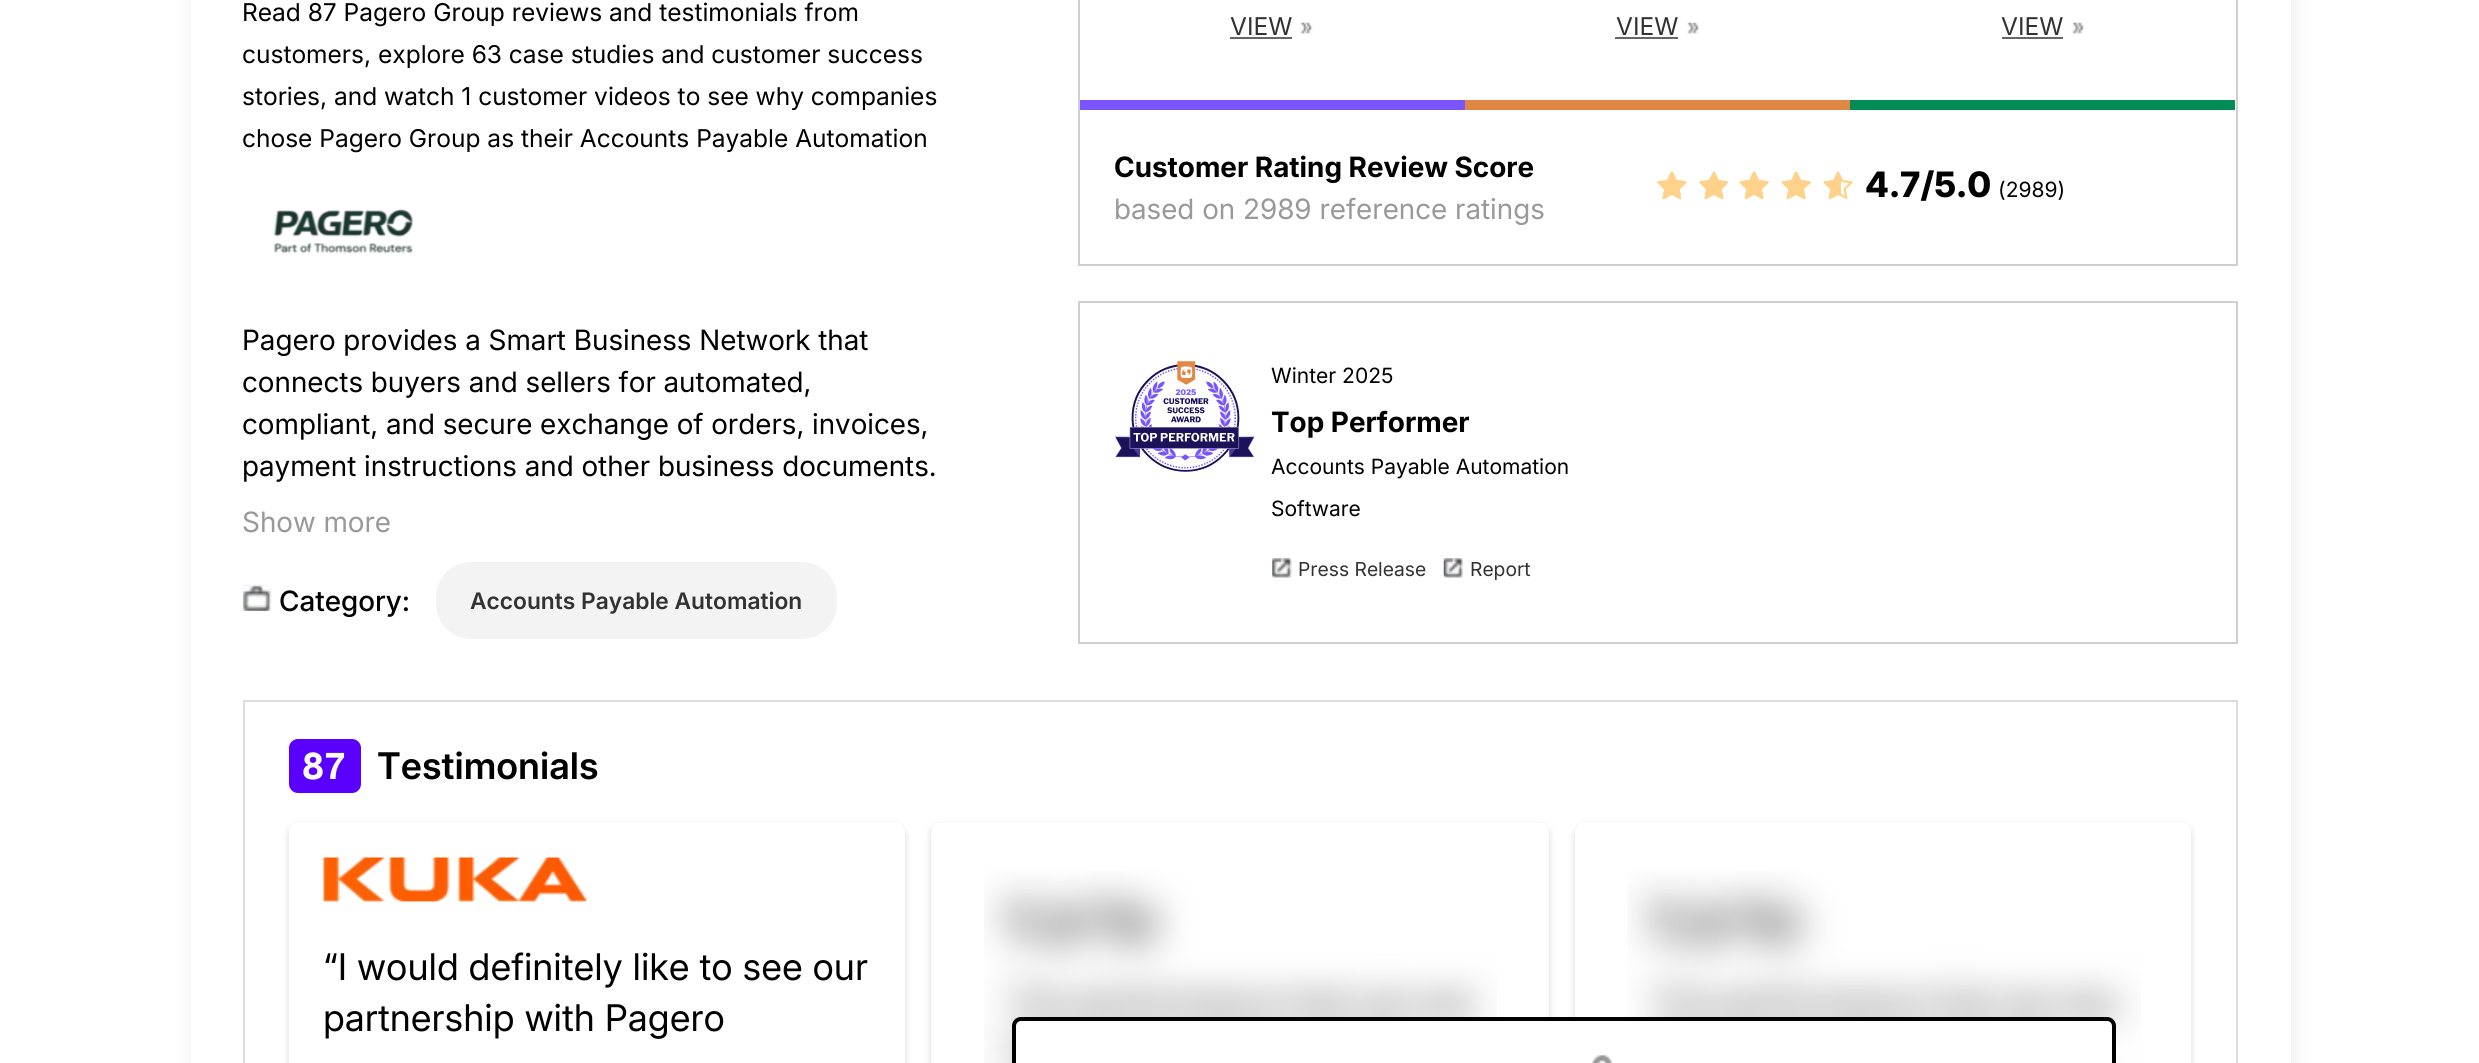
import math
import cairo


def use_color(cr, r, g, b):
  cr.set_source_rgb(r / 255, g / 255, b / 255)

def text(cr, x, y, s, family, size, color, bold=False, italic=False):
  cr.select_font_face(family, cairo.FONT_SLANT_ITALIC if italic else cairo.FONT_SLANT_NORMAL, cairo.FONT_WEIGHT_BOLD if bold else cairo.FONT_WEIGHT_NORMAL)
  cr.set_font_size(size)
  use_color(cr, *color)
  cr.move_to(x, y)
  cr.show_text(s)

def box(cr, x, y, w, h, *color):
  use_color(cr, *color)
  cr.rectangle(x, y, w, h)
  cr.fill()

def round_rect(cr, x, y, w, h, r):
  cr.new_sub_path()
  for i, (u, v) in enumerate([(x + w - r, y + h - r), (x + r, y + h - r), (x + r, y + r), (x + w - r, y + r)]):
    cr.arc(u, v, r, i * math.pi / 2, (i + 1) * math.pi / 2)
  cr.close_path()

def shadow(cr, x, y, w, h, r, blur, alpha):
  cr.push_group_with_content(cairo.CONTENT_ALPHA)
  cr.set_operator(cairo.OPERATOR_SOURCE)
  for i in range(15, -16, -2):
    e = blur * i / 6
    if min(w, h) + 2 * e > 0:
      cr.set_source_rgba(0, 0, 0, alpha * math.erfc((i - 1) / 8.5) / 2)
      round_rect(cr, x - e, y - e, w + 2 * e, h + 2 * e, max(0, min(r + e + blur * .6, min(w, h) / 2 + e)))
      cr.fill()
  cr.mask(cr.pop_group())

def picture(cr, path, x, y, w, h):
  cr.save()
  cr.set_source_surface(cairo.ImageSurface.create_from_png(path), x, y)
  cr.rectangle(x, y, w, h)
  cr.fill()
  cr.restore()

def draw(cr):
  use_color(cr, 255, 255, 255)
  cr.paint()
  use_color(cr, 50, 50, 50)
  shadow(cr, 194, -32, 2100, 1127, 0, 10.5, 0.1)
  box(cr, 191, 0, 2100, 1063, 255, 255, 255)
  picture(cr, "img_01.png", 273, 209, 141, 45)
  picture(cr, "img_02.png", 243, 584, 29, 27)
  use_color(cr, 243, 243, 243)
  round_rect(cr, 436, 562, 401, 77, 35)
  cr.fill()
  cr.rectangle(1079, -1, 1158, 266)
  use_color(cr, 207, 207, 207)
  cr.stroke()
  box(cr, 1080, 100, 385, 10, 120, 85, 255)
  box(cr, 1230, 37, 62, 2, 102, 102, 102)
  picture(cr, "img_03.png", 1300, 22, 13, 12)
  box(cr, 1465, 100, 385, 10, 225, 134, 67)
  box(cr, 1615, 37, 63, 2, 102, 102, 102)
  picture(cr, "img_04.png", 1687, 22, 13, 12)
  box(cr, 1850, 100, 385, 10, 1, 139, 86)
  box(cr, 2002, 37, 61, 2, 102, 102, 102)
  picture(cr, "img_04.png", 2072, 22, 13, 12)
  picture(cr, "img_05.png", 1657, 171, 30, 29)
  picture(cr, "img_06.png", 1657, 172, 30, 28)
  picture(cr, "img_05.png", 1699, 171, 30, 29)
  picture(cr, "img_07.png", 1699, 172, 28, 28)
  picture(cr, "img_08.png", 1739, 171, 30, 29)
  picture(cr, "img_09.png", 1740, 172, 29, 28)
  picture(cr, "img_08.png", 1781, 171, 30, 29)
  picture(cr, "img_09.png", 1782, 172, 29, 28)
  picture(cr, "img_10.png", 1823, 171, 30, 29)
  picture(cr, "img_11.png", 1824, 172, 17, 28)
  cr.rectangle(1079, 302, 1158, 341)
  use_color(cr, 207, 207, 207)
  cr.stroke()
  picture(cr, "img_12.png", 1115, 361, 140, 111)
  picture(cr, "img_13.png", 1272, 558, 20, 20)
  picture(cr, "img_14.png", 1443, 558, 20, 20)
  box(cr, 243, 700, 1995, 2, 221, 221, 221)
  cr.new_path()
  cr.move_to(2238, 700)
  cr.line_to(2238, 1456)
  cr.line_to(2236, 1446)
  cr.line_to(2236, 702)
  cr.close_path()
  cr.fill()
  cr.new_path()
  cr.move_to(243, 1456)
  cr.line_to(243, 700)
  cr.line_to(245, 702)
  cr.line_to(245, 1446)
  cr.close_path()
  cr.fill()
  use_color(cr, 89, 0, 255)
  round_rect(cr, 289, 739, 72, 54, 9)
  cr.fill()
  cr.save()
  cr.set_fill_rule(cairo.FILL_RULE_EVEN_ODD)
  cr.new_path()
  cr.move_to(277, 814)
  cr.line_to(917, 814)
  cr.line_to(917, 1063)
  cr.line_to(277, 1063)
  cr.close_path()
  cr.move_to(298, 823)
  cr.line_to(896, 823)
  cr.curve_to(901, 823, 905, 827, 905, 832)
  cr.line_to(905, 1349)
  cr.curve_to(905, 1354, 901, 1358, 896, 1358)
  cr.line_to(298, 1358)
  cr.curve_to(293, 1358, 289, 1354, 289, 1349)
  cr.line_to(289, 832)
  cr.curve_to(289, 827, 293, 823, 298, 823)
  cr.close_path()
  cr.clip()
  use_color(cr, 216, 216, 216)
  shadow(cr, 289, 826, 616, 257, 9, 3.5, 1)
  cr.restore()
  picture(cr, "img_15.png", 323, 857, 264, 45)
  cr.save()
  cr.set_fill_rule(cairo.FILL_RULE_EVEN_ODD)
  cr.new_path()
  cr.move_to(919, 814)
  cr.line_to(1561, 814)
  cr.line_to(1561, 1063)
  cr.line_to(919, 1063)
  cr.close_path()
  cr.move_to(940, 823)
  cr.line_to(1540, 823)
  cr.curve_to(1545, 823, 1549, 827, 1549, 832)
  cr.line_to(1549, 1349)
  cr.curve_to(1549, 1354, 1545, 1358, 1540, 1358)
  cr.line_to(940, 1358)
  cr.curve_to(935, 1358, 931, 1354, 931, 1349)
  cr.line_to(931, 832)
  cr.curve_to(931, 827, 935, 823, 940, 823)
  cr.close_path()
  cr.clip()
  use_color(cr, 216, 216, 216)
  shadow(cr, 931, 826, 618, 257, 9, 3.5, 1)
  cr.restore()
  picture(cr, "img_16.png", 984, 871, 513, 192)
  cr.save()
  cr.set_fill_rule(cairo.FILL_RULE_EVEN_ODD)
  cr.new_path()
  cr.move_to(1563, 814)
  cr.line_to(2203, 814)
  cr.line_to(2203, 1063)
  cr.line_to(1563, 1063)
  cr.close_path()
  cr.move_to(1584, 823)
  cr.line_to(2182, 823)
  cr.curve_to(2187, 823, 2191, 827, 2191, 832)
  cr.line_to(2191, 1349)
  cr.curve_to(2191, 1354, 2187, 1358, 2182, 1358)
  cr.line_to(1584, 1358)
  cr.curve_to(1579, 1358, 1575, 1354, 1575, 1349)
  cr.line_to(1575, 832)
  cr.curve_to(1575, 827, 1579, 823, 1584, 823)
  cr.close_path()
  cr.clip()
  use_color(cr, 216, 216, 216)
  shadow(cr, 1575, 826, 616, 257, 9, 3.5, 1)
  cr.restore()
  picture(cr, "img_17.png", 1627, 871, 514, 192)
  use_color(cr, 255, 255, 255)
  round_rect(cr, 1014, 1019, 1100, 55, 7)
  cr.fill_preserve()
  use_color(cr, 0, 0, 0)
  cr.set_line_width(4)
  cr.stroke()
  picture(cr, "img_18.png", 1592, 1054, 21, 9)
  text(cr, 242, 21, "Read 87 Pagero Group reviews and testimonials from", "Inter", 24.5, (0, 0, 0))
  text(cr, 242, 63, "customers, explore 63 case studies and customer success", "Inter", 24.5, (0, 0, 0))
  text(cr, 242, 105, "stories, and watch 1 customer videos to see why companies", "Inter", 24.5, (0, 0, 0))
  text(cr, 242, 147, "chose Pagero Group as their Accounts Payable Automation", "Inter", 24.5, (0, 0, 0))
  text(cr, 242, 350, "Pagero provides a Smart Business Network that", "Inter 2", 28, (0, 0, 0))
  text(cr, 242, 392, "connects buyers and sellers for automated,", "Inter 2", 28, (0, 0, 0))
  text(cr, 242, 434, "compliant, and secure exchange of orders, invoices,", "Inter 2", 28, (0, 0, 0))
  text(cr, 242, 476, "payment instructions and other business documents.", "Inter 2", 28, (0, 0, 0))
  text(cr, 242, 532, "Show more", "Inter 2", 28, (153, 153, 153))
  text(cr, 279, 611, "Category:", "Inter Medium", 28, (0, 0, 0))
  text(cr, 470, 609, "Accounts Payable Automation", "Inter SemiBold", 22.75, (50, 50, 50))
  text(cr, 1230, 35, "VIEW", "Inter", 24.5, (50, 50, 50))
  text(cr, 1616, 35, "VIEW", "Inter", 24.5, (50, 50, 50))
  text(cr, 2001, 35, "VIEW", "Inter", 24.5, (50, 50, 50))
  text(cr, 1114, 177, "Customer Rating Review Score", "Inter", 28, (0, 0, 0), bold=True)
  text(cr, 1114, 219, "based on 2989 reference ratings", "Inter 2", 28, (153, 153, 153))
  text(cr, 1865, 197, "4.7/5.0", "Inter ExtraBold", 35, (0, 0, 0))
  text(cr, 1998, 197, "(2989)", "Inter", 21, (0, 0, 0))
  text(cr, 1271, 383, "Winter 2025", "Inter", 21, (0, 0, 0))
  text(cr, 1271, 432, "Top Performer", "Inter", 28, (0, 0, 0), bold=True)
  text(cr, 1271, 474, "Accounts Payable Automation", "Inter", 21, (0, 0, 0))
  text(cr, 1271, 516, "Software", "Inter", 21, (0, 0, 0))
  text(cr, 1298, 576, "Press Release", "Inter", 19.25, (50, 50, 50))
  text(cr, 1470, 576, "Report", "Inter", 19.25, (50, 50, 50))
  text(cr, 302, 779, "87", "Geist Mono", 36.75, (255, 255, 255), bold=True)
  text(cr, 377, 779, "Testimonials", "Inter 2 SemiBold", 36.75, (0, 0, 0))
  text(cr, 323, 980, "“I would definitely like to see our", "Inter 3", 36.75, (0, 0, 0))
  text(cr, 323, 1031, "partnership with Pagero", "Inter 3", 36.75, (0, 0, 0))


surface = cairo.ImageSurface(cairo.FORMAT_RGB24, 2479, 1063)
cr = cairo.Context(surface)
options = cairo.FontOptions()
options.set_hint_metrics(cairo.HINT_METRICS_OFF)
options.set_hint_style(cairo.HINT_STYLE_NONE)
cr.set_font_options(options)
cr.set_miter_limit(4)
draw(cr)
surface.write_to_png("out.png")
